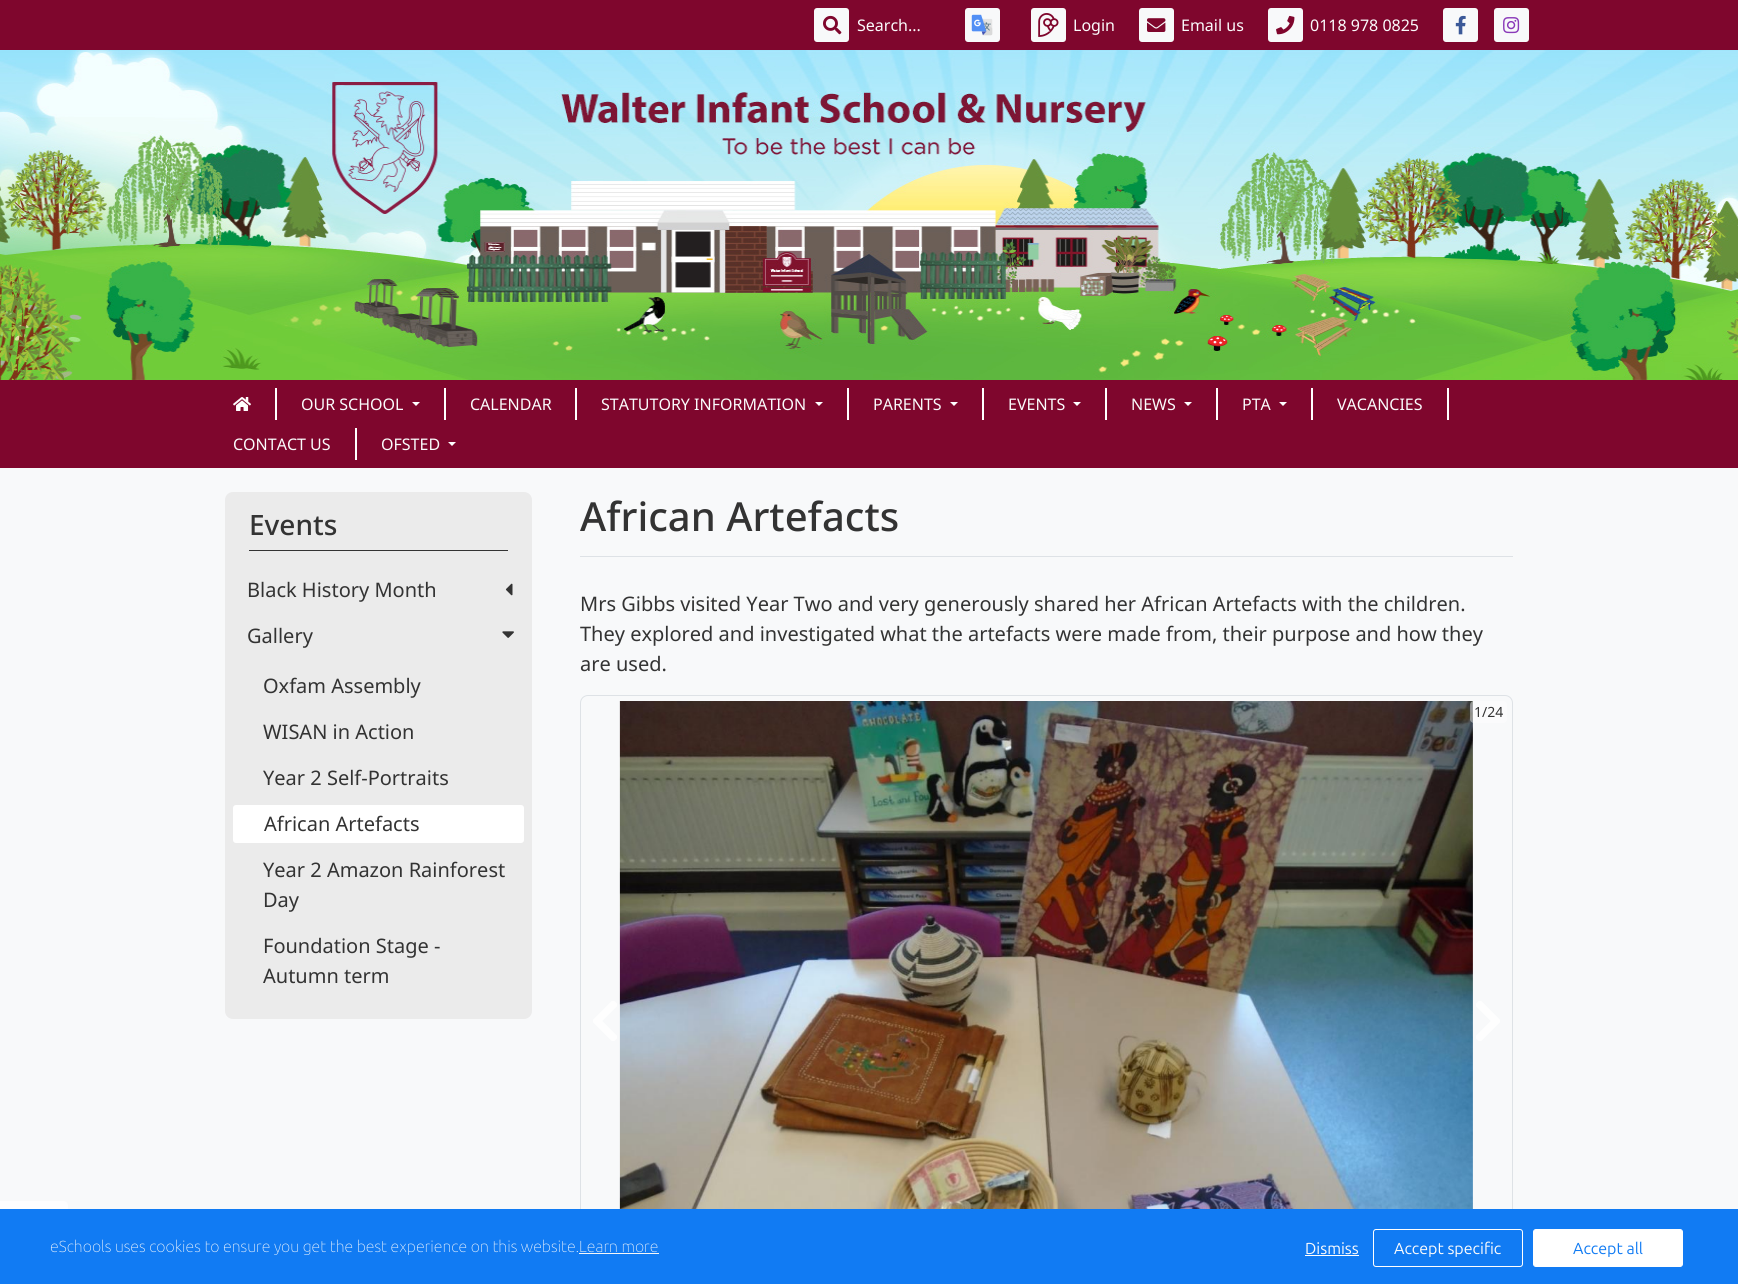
import math
import cairo


def use_color(cr, r, g, b):
  cr.set_source_rgb(r / 255, g / 255, b / 255)

def text(cr, x, y, s, family, size, color, bold=False, italic=False):
  cr.select_font_face(family, cairo.FONT_SLANT_ITALIC if italic else cairo.FONT_SLANT_NORMAL, cairo.FONT_WEIGHT_BOLD if bold else cairo.FONT_WEIGHT_NORMAL)
  cr.set_font_size(size)
  use_color(cr, *color)
  cr.move_to(x, y)
  cr.show_text(s)

def box(cr, x, y, w, h, *color):
  use_color(cr, *color)
  cr.rectangle(x, y, w, h)
  cr.fill()

def round_rect(cr, x, y, w, h, r):
  cr.new_sub_path()
  for i, (u, v) in enumerate([(x + w - r, y + h - r), (x + r, y + h - r), (x + r, y + r), (x + w - r, y + r)]):
    cr.arc(u, v, r, i * math.pi / 2, (i + 1) * math.pi / 2)
  cr.close_path()

def picture(cr, path, x, y, w, h):
  cr.save()
  cr.set_source_surface(cairo.ImageSurface.create_from_png(path), x, y)
  cr.rectangle(x, y, w, h)
  cr.fill()
  cr.restore()

def draw(cr):
  use_color(cr, 248, 249, 250)
  cr.paint()
  box(cr, 0, 0, 1738, 50, 127, 6, 45)
  use_color(cr, 248, 249, 250)
  round_rect(cr, 814, 8, 35, 34, 3)
  cr.fill()
  picture(cr, "img_01.png", 823, 15, 19, 20)
  round_rect(cr, 965, 8, 35, 34, 3)
  cr.fill()
  picture(cr, "img_02.png", 971, 14, 22, 22)
  round_rect(cr, 1031, 8, 35, 34, 3)
  cr.fill()
  picture(cr, "img_03.png", 1038, 13, 21, 24)
  round_rect(cr, 1139, 8, 35, 34, 3)
  cr.fill()
  picture(cr, "img_04.png", 1147, 18, 19, 14)
  round_rect(cr, 1268, 8, 35, 34, 3)
  cr.fill()
  picture(cr, "img_05.png", 1276, 15, 19, 20)
  round_rect(cr, 1443, 8, 35, 34, 3)
  cr.fill()
  picture(cr, "img_06.png", 1455, 15, 11, 20)
  round_rect(cr, 1494, 8, 35, 34, 3)
  cr.fill()
  picture(cr, "img_07.png", 1503, 17, 17, 17)
  picture(cr, "img_08.png", 0, 50, 1738, 330)
  box(cr, 0, 380, 1738, 88, 127, 6, 45)
  box(cr, 275, 388, 2, 32, 255, 255, 255)
  picture(cr, "img_09.png", 233, 397, 18, 14)
  box(cr, 444, 388, 2, 32, 255, 255, 255)
  cr.new_path()
  cr.move_to(412, 402)
  cr.line_to(420, 402)
  cr.line_to(416, 406)
  cr.close_path()
  cr.fill()
  box(cr, 575, 388, 2, 32, 255, 255, 255)
  box(cr, 847, 388, 2, 32, 255, 255, 255)
  cr.new_path()
  cr.move_to(815, 402)
  cr.line_to(823, 402)
  cr.line_to(819, 406)
  cr.close_path()
  cr.fill()
  box(cr, 982, 388, 2, 32, 255, 255, 255)
  cr.new_path()
  cr.move_to(950, 402)
  cr.line_to(958, 402)
  cr.line_to(954, 406)
  cr.close_path()
  cr.fill()
  box(cr, 1105, 388, 2, 32, 255, 255, 255)
  cr.new_path()
  cr.move_to(1073, 402)
  cr.line_to(1081, 402)
  cr.line_to(1077, 406)
  cr.close_path()
  cr.fill()
  box(cr, 1216, 388, 2, 32, 255, 255, 255)
  cr.new_path()
  cr.move_to(1184, 402)
  cr.line_to(1192, 402)
  cr.line_to(1188, 406)
  cr.close_path()
  cr.fill()
  box(cr, 1311, 388, 2, 32, 255, 255, 255)
  cr.new_path()
  cr.move_to(1279, 402)
  cr.line_to(1287, 402)
  cr.line_to(1283, 406)
  cr.close_path()
  cr.fill()
  box(cr, 1447, 388, 2, 32, 255, 255, 255)
  box(cr, 355, 428, 2, 32, 255, 255, 255)
  cr.new_path()
  cr.move_to(448, 442)
  cr.line_to(456, 442)
  cr.line_to(452, 446)
  cr.close_path()
  cr.fill()
  use_color(cr, 235, 235, 235)
  round_rect(cr, 225, 492, 307, 527, 8)
  cr.fill()
  box(cr, 249, 550, 259, 1, 51, 51, 51)
  picture(cr, "img_10.png", 505, 583, 8, 13)
  picture(cr, "img_11.png", 502, 631, 12, 7)
  use_color(cr, 255, 255, 255)
  round_rect(cr, 233, 805, 291, 38, 3)
  cr.fill()
  box(cr, 580, 556, 933, 1, 222, 226, 230)
  round_rect(cr, 580.5, 695.5, 932, 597, 7.5)
  cr.set_line_width(1)
  cr.stroke()
  picture(cr, "img_12.png", 619, 701, 854, 508)
  cr.set_source_rgba(1, 1, 1, 0.4)
  round_rect(cr, 1470, 701, 37, 22, 4)
  cr.fill()
  picture(cr, "img_13.png", 593, 1001, 24, 40)
  picture(cr, "img_14.png", 1476, 1001, 24, 40)
  use_color(cr, 253, 253, 254)
  cr.new_path()
  cr.move_to(0, 1201)
  cr.line_to(63, 1201)
  cr.curve_to(66, 1201, 68, 1203, 68, 1206)
  cr.line_to(68, 1264)
  cr.curve_to(68, 1267, 66, 1269, 63, 1269)
  cr.line_to(0, 1269)
  cr.close_path()
  cr.fill()
  box(cr, 0, 1209, 1738, 75, 17, 123, 243)
  box(cr, 579, 1253, 80, 1, 247, 247, 247)
  box(cr, 1305, 1255, 54, 1, 255, 255, 255)
  round_rect(cr, 1373.5, 1229.5, 149, 37, 2.5)
  cr.stroke()
  round_rect(cr, 1533.5, 1229.5, 149, 37, 2.5)
  cr.fill_preserve()
  cr.stroke()
  text(cr, 857, 31, "Search...", "Noto Sans", 16, (251, 251, 252))
  text(cr, 1073, 31, "Login", "Noto Sans", 16, (251, 251, 252))
  text(cr, 1181, 31, "Email us", "Noto Sans", 16, (251, 251, 252))
  text(cr, 1310, 31, "0118 978 0825", "Noto Sans", 16, (251, 251, 252))
  text(cr, 301, 410, "OUR SCHOOL", "Noto Sans", 16, (251, 251, 252))
  text(cr, 470, 410, "CALENDAR", "Noto Sans", 16, (251, 251, 252))
  text(cr, 601, 410, "STATUTORY INFORMATION", "Noto Sans", 16, (251, 251, 252))
  text(cr, 873, 410, "PARENTS", "Noto Sans", 16, (251, 251, 252))
  text(cr, 1008, 410, "EVENTS", "Noto Sans", 16, (251, 251, 252))
  text(cr, 1131, 410, "NEWS", "Noto Sans", 16, (251, 251, 252))
  text(cr, 1242, 410, "PTA", "Noto Sans", 16, (251, 251, 252))
  text(cr, 1337, 410, "VACANCIES", "Noto Sans", 16, (251, 251, 252))
  text(cr, 233, 450, "CONTACT US", "Noto Sans", 16, (251, 251, 252))
  text(cr, 381, 450, "OFSTED", "Noto Sans", 16, (251, 251, 252))
  text(cr, 249, 535, "Events", "Noto Sans Medium", 28, (51, 51, 51))
  text(cr, 247, 597, "Black History Month", "Noto Sans", 20, (51, 51, 51))
  text(cr, 247, 643, "Gallery", "Noto Sans", 20, (51, 51, 51))
  text(cr, 263, 693, "Oxfam Assembly", "Noto Sans", 20, (51, 51, 51))
  text(cr, 263, 739, "WISAN in Action", "Noto Sans", 20, (51, 51, 51))
  text(cr, 263, 785, "Year 2 Self-Portraits", "Noto Sans", 20, (51, 51, 51))
  text(cr, 264, 831, "African Artefacts", "Noto Sans", 20, (51, 51, 51))
  text(cr, 263, 877, "Year 2 Amazon Rainforest", "Noto Sans", 20, (51, 51, 51))
  text(cr, 263, 907, "Day", "Noto Sans", 20, (51, 51, 51))
  text(cr, 263, 953, "Foundation Stage -", "Noto Sans", 20, (51, 51, 51))
  text(cr, 263, 983, "Autumn term", "Noto Sans", 20, (51, 51, 51))
  text(cr, 580, 531, "African Artefacts", "Noto Sans Medium", 40, (51, 51, 51))
  text(cr, 580, 611, "Mrs Gibbs visited Year Two and very generously shared her African Artefacts with the children.", "Noto Sans", 20, (51, 51, 51))
  text(cr, 580, 641, "They explored and investigated what the artefacts were made from, their purpose and how they", "Noto Sans", 20, (51, 51, 51))
  text(cr, 580, 671, "are used.", "Noto Sans", 20, (51, 51, 51))
  text(cr, 1474, 717, "1/24", "Noto Sans", 14, (51, 51, 51))
  text(cr, 50, 1252, "eSchools uses cookies to ensure you get the best experience on this website.", "Ubuntu Thin", 16, (251, 251, 252))
  text(cr, 579, 1252, "Learn more", "Ubuntu Thin", 16, (251, 251, 252))
  text(cr, 1305, 1254, "Dismiss", "Ubuntu", 16, (251, 251, 252))
  text(cr, 1394, 1254, "Accept specific", "Ubuntu", 16, (251, 251, 252))
  text(cr, 1573, 1254, "Accept all", "Ubuntu", 16, (17, 123, 243))


surface = cairo.ImageSurface(cairo.FORMAT_RGB24, 1738, 1284)
cr = cairo.Context(surface)
options = cairo.FontOptions()
options.set_hint_metrics(cairo.HINT_METRICS_OFF)
options.set_hint_style(cairo.HINT_STYLE_NONE)
cr.set_font_options(options)
cr.set_miter_limit(4)
draw(cr)
surface.write_to_png("out.png")
